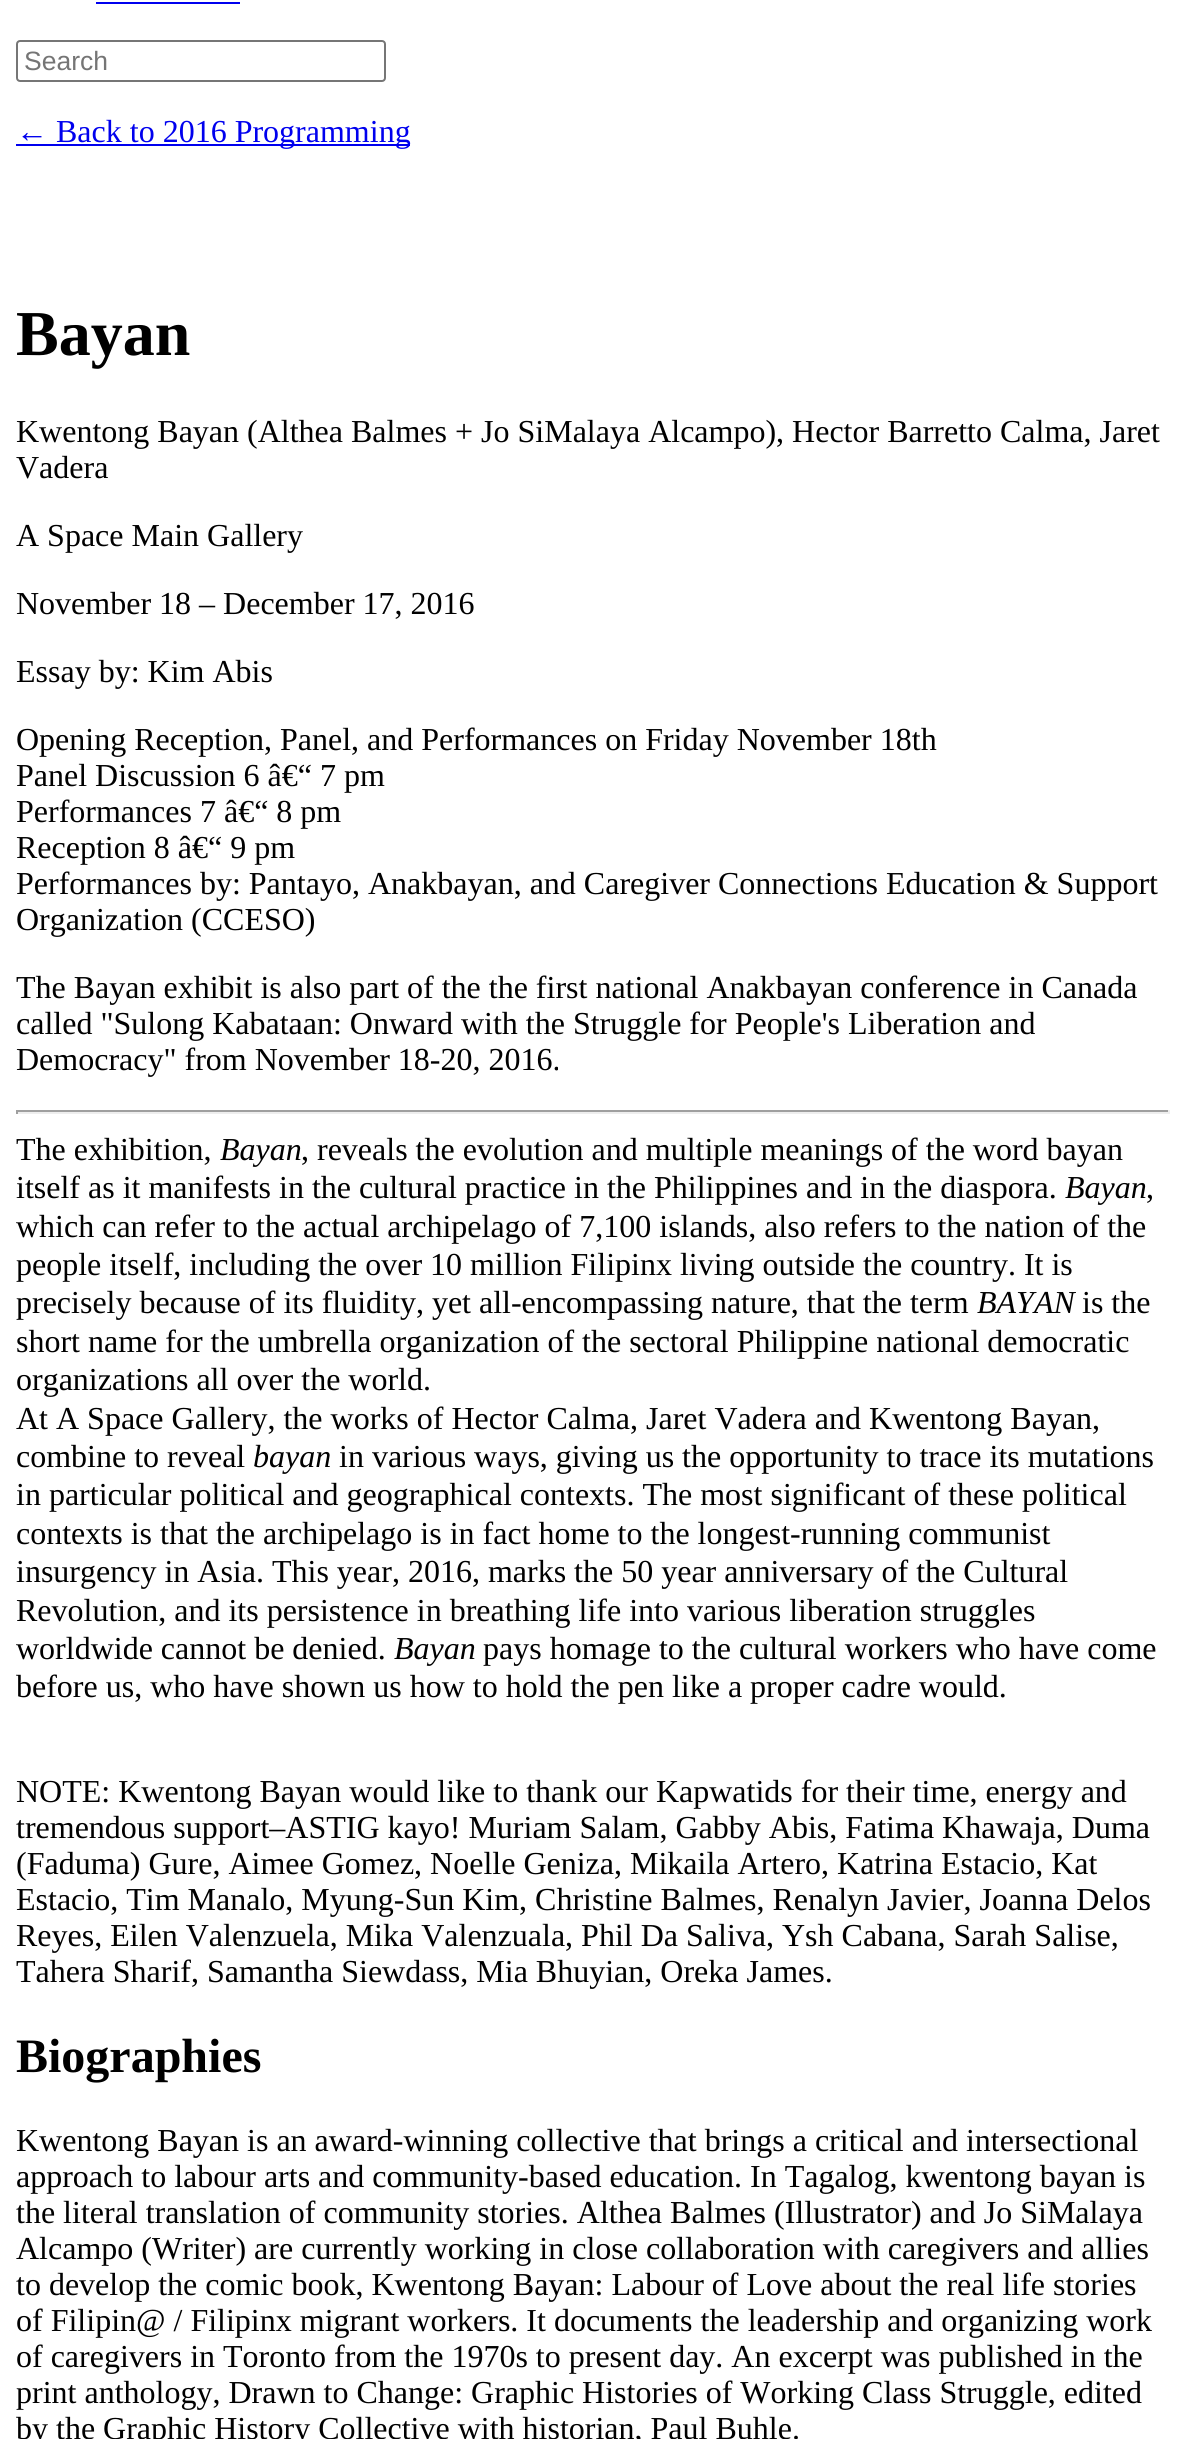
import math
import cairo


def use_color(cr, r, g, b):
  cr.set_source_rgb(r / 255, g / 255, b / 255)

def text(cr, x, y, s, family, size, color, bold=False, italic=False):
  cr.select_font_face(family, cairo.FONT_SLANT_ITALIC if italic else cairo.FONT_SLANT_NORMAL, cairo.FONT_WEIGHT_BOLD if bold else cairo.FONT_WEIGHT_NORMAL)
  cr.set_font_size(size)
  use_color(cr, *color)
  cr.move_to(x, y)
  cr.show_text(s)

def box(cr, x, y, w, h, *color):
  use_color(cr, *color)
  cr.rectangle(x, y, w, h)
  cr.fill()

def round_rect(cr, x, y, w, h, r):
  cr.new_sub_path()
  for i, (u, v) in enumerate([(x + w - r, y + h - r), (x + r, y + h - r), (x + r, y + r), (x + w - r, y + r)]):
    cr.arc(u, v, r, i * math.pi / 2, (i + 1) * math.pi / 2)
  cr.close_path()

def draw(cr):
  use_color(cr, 255, 255, 255)
  cr.paint()
  box(cr, 96, 2, 144, 2, 0, 0, 238)
  round_rect(cr, 17, 41, 368, 40, 3)
  use_color(cr, 118, 118, 118)
  cr.stroke()
  box(cr, 16, 144, 394, 2, 0, 0, 238)
  box(cr, 16, 1110, 1154, 2, 159, 159, 159)
  box(cr, 1168, 1110, 2, 4, 238, 238, 238)
  box(cr, 16, 1112, 1154, 2, 238, 238, 238)
  box(cr, 16, 1110, 2, 4, 159, 159, 159)
  text(cr, 24, 70, "Search", "Liberation Sans", 26.5, (117, 117, 117))
  text(cr, 16, 142, "← Back to 2016 Programming", "Liberation Serif", 32, (0, 0, 238))
  text(cr, 16, 355, "Bayan", "Liberation Serif", 64, (0, 0, 0), bold=True)
  text(cr, 16, 442, "Kwentong Bayan (Althea Balmes + Jo SiMalaya Alcampo), Hector Barretto Calma, Jaret", "Liberation Serif", 32, (0, 0, 0))
  text(cr, 16, 478, "Vadera", "Liberation Serif", 32, (0, 0, 0))
  text(cr, 16, 546, "A Space Main Gallery", "Liberation Serif", 32, (0, 0, 0))
  text(cr, 16, 614, "November 18 – December 17, 2016", "Liberation Serif", 32, (0, 0, 0))
  text(cr, 16, 682, "Essay by: Kim Abis", "Liberation Serif", 32, (0, 0, 0))
  text(cr, 16, 750, "Opening Reception, Panel, and Performances on Friday November 18th", "Liberation Serif", 32, (0, 0, 0))
  text(cr, 16, 786, "Panel Discussion 6 â€“ 7 pm", "Liberation Serif", 32, (0, 0, 0))
  text(cr, 16, 822, "Performances 7 â€“ 8 pm", "Liberation Serif", 32, (0, 0, 0))
  text(cr, 16, 858, "Reception 8 â€“ 9 pm", "Liberation Serif", 32, (0, 0, 0))
  text(cr, 16, 894, "Performances by: Pantayo, Anakbayan, and Caregiver Connections Education & Support", "Liberation Serif", 32, (0, 0, 0))
  text(cr, 16, 930, "Organization (CCESO)", "Liberation Serif", 32, (0, 0, 0))
  text(cr, 16, 998, "The Bayan exhibit is also part of the the first national Anakbayan conference in Canada", "Liberation Serif", 32, (0, 0, 0))
  text(cr, 16, 1034, "called \"Sulong Kabataan: Onward with the Struggle for People's Liberation and", "Liberation Serif", 32, (0, 0, 0))
  text(cr, 16, 1070, "Democracy\" from November 18-20, 2016.", "Liberation Serif", 32, (0, 0, 0))
  text(cr, 16, 1160, "The exhibition,", "Liberation Serif", 32, (0, 0, 0))
  text(cr, 220, 1160, "Bayan", "Liberation Serif", 32, (0, 0, 0), italic=True)
  text(cr, 301, 1160, ", reveals the evolution and multiple meanings of the word bayan", "Liberation Serif", 32, (0, 0, 0))
  text(cr, 16, 1198, "itself as it manifests in the cultural practice in the Philippines and in the diaspora.", "Liberation Serif", 32, (0, 0, 0))
  text(cr, 1065, 1198, "Bayan", "Liberation Serif", 32, (0, 0, 0), italic=True)
  text(cr, 1146, 1198, ",", "Liberation Serif", 32, (0, 0, 0))
  text(cr, 16, 1237, "which can refer to the actual archipelago of 7,100 islands, also refers to the nation of the", "Liberation Serif", 32, (0, 0, 0))
  text(cr, 16, 1275, "people itself, including the over 10 million Filipinx living outside the country. It is", "Liberation Serif", 32, (0, 0, 0))
  text(cr, 16, 1313, "precisely because of its fluidity, yet all-encompassing nature, that the term", "Liberation Serif", 32, (0, 0, 0))
  text(cr, 977, 1313, "BAYAN", "Liberation Serif", 32, (0, 0, 0), italic=True)
  text(cr, 1082, 1313, "is the", "Liberation Serif", 32, (0, 0, 0))
  text(cr, 16, 1352, "short name for the umbrella organization of the sectoral Philippine national democratic", "Liberation Serif", 32, (0, 0, 0))
  text(cr, 16, 1390, "organizations all over the world.", "Liberation Serif", 32, (0, 0, 0))
  text(cr, 16, 1429, "At A Space Gallery, the works of Hector Calma, Jaret Vadera and Kwentong Bayan,", "Liberation Serif", 32, (0, 0, 0))
  text(cr, 16, 1467, "combine to reveal", "Liberation Serif", 32, (0, 0, 0))
  text(cr, 253, 1467, "bayan", "Liberation Serif", 32, (0, 0, 0), italic=True)
  text(cr, 339, 1467, "in various ways, giving us the opportunity to trace its mutations", "Liberation Serif", 32, (0, 0, 0))
  text(cr, 16, 1505, "in particular political and geographical contexts. The most significant of these political", "Liberation Serif", 32, (0, 0, 0))
  text(cr, 16, 1544, "contexts is that the archipelago is in fact home to the longest-running communist", "Liberation Serif", 32, (0, 0, 0))
  text(cr, 16, 1582, "insurgency in Asia. This year, 2016, marks the 50 year anniversary of the Cultural", "Liberation Serif", 32, (0, 0, 0))
  text(cr, 16, 1621, "Revolution, and its persistence in breathing life into various liberation struggles", "Liberation Serif", 32, (0, 0, 0))
  text(cr, 16, 1659, "worldwide cannot be denied.", "Liberation Serif", 32, (0, 0, 0))
  text(cr, 394, 1659, "Bayan", "Liberation Serif", 32, (0, 0, 0), italic=True)
  text(cr, 483, 1659, "pays homage to the cultural workers who have come", "Liberation Serif", 32, (0, 0, 0))
  text(cr, 16, 1697, "before us, who have shown us how to hold the pen like a proper cadre would.", "Liberation Serif", 32, (0, 0, 0))
  text(cr, 16, 1802, "NOTE: Kwentong Bayan would like to thank our Kapwatids for their time, energy and", "Liberation Serif", 32, (0, 0, 0))
  text(cr, 16, 1838, "tremendous support–ASTIG kayo! Muriam Salam, Gabby Abis, Fatima Khawaja, Duma", "Liberation Serif", 32, (0, 0, 0))
  text(cr, 16, 1874, "(Faduma) Gure, Aimee Gomez, Noelle Geniza, Mikaila Artero, Katrina Estacio, Kat", "Liberation Serif", 32, (0, 0, 0))
  text(cr, 16, 1910, "Estacio, Tim Manalo, Myung-Sun Kim, Christine Balmes, Renalyn Javier, Joanna Delos", "Liberation Serif", 32, (0, 0, 0))
  text(cr, 16, 1946, "Reyes, Eilen Valenzuela, Mika Valenzuala, Phil Da Saliva, Ysh Cabana, Sarah Salise,", "Liberation Serif", 32, (0, 0, 0))
  text(cr, 16, 1982, "Tahera Sharif, Samantha Siewdass, Mia Bhuyian, Oreka James.", "Liberation Serif", 32, (0, 0, 0))
  text(cr, 16, 2072, "Biographies", "Liberation Serif", 48, (0, 0, 0), bold=True)
  text(cr, 16, 2151, "Kwentong Bayan is an award-winning collective that brings a critical and intersectional", "Liberation Serif", 32, (0, 0, 0))
  text(cr, 16, 2187, "approach to labour arts and community-based education. In Tagalog, kwentong bayan is", "Liberation Serif", 32, (0, 0, 0))
  text(cr, 16, 2223, "the literal translation of community stories. Althea Balmes (Illustrator) and Jo SiMalaya", "Liberation Serif", 32, (0, 0, 0))
  text(cr, 16, 2259, "Alcampo (Writer) are currently working in close collaboration with caregivers and allies", "Liberation Serif", 32, (0, 0, 0))
  text(cr, 16, 2295, "to develop the comic book, Kwentong Bayan: Labour of Love about the real life stories", "Liberation Serif", 32, (0, 0, 0))
  text(cr, 16, 2331, "of Filipin@ / Filipinx migrant workers. It documents the leadership and organizing work", "Liberation Serif", 32, (0, 0, 0))
  text(cr, 16, 2367, "of caregivers in Toronto from the 1970s to present day. An excerpt was published in the", "Liberation Serif", 32, (0, 0, 0))
  text(cr, 16, 2403, "print anthology, Drawn to Change: Graphic Histories of Working Class Struggle, edited", "Liberation Serif", 32, (0, 0, 0))
  text(cr, 16, 2439, "by the Graphic History Collective with historian, Paul Buhle.", "Liberation Serif", 32, (0, 0, 0))


surface = cairo.ImageSurface(cairo.FORMAT_RGB24, 1185, 2439)
cr = cairo.Context(surface)
options = cairo.FontOptions()
options.set_hint_metrics(cairo.HINT_METRICS_OFF)
options.set_hint_style(cairo.HINT_STYLE_NONE)
cr.set_font_options(options)
cr.set_miter_limit(4)
draw(cr)
surface.write_to_png("out.png")
